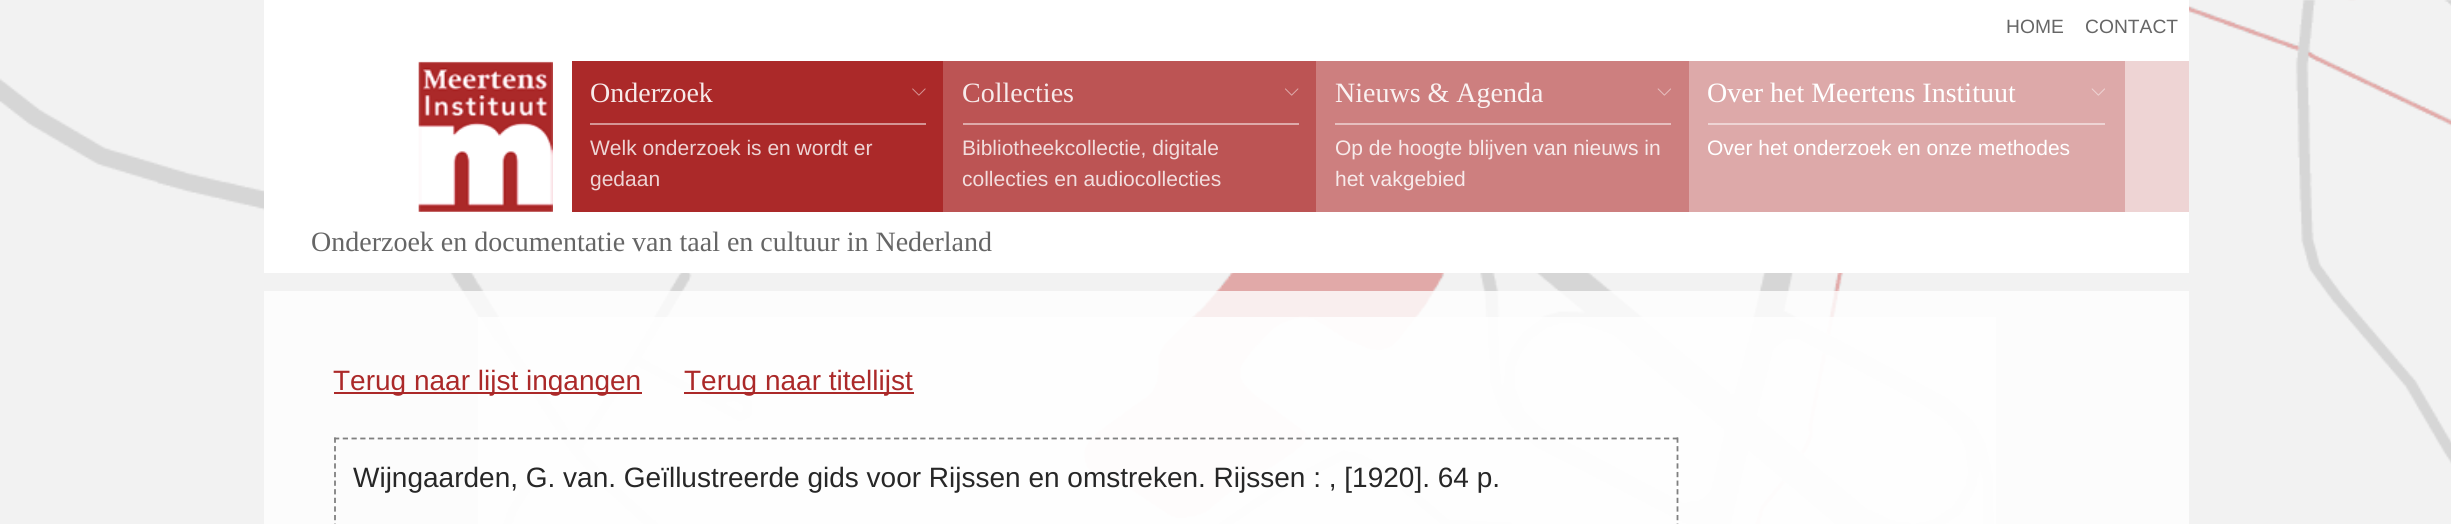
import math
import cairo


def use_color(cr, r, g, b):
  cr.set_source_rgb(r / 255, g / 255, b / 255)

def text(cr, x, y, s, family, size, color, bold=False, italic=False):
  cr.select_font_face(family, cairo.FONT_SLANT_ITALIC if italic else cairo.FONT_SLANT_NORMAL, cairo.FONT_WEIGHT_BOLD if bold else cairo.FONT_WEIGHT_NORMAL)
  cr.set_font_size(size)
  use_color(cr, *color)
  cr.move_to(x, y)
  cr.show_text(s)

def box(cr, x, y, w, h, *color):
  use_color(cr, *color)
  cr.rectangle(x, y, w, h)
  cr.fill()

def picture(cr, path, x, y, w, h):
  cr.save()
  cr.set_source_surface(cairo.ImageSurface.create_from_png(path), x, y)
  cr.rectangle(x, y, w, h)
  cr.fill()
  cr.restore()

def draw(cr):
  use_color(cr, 255, 255, 255)
  cr.paint()
  picture(cr, "img_01.png", 0, 0, 2451, 524)
  box(cr, 264, 0, 1925, 273, 255, 255, 255)
  picture(cr, "img_02.png", 418, 61, 135, 151)
  box(cr, 2125, 61, 64, 151, 238, 212, 212)
  box(cr, 572, 61, 371, 151, 171, 41, 41)
  picture(cr, "img_03.png", 912, 88, 14, 8)
  box(cr, 590, 123, 336, 2, 213, 148, 148)
  box(cr, 943, 61, 373, 151, 188, 84, 84)
  picture(cr, "img_04.png", 1285, 88, 14, 8)
  box(cr, 963, 123, 336, 2, 222, 170, 170)
  box(cr, 1316, 61, 373, 151, 205, 127, 127)
  picture(cr, "img_05.png", 1657, 88, 14, 8)
  box(cr, 1335, 123, 336, 2, 230, 191, 191)
  box(cr, 1689, 61, 436, 151, 221, 169, 169)
  picture(cr, "img_06.png", 2091, 88, 14, 8)
  box(cr, 1708, 123, 397, 2, 238, 212, 212)
  cr.set_source_rgba(1, 1, 1, 0.8)
  cr.rectangle(264, 291, 1925, 233)
  cr.fill()
  cr.rectangle(478, 317, 1518, 207)
  cr.fill()
  box(cr, 334, 392, 308, 2, 171, 41, 41)
  box(cr, 684, 392, 230, 2, 171, 41, 41)
  cr.new_path()
  cr.move_to(334, 438.5)
  cr.line_to(1678, 438.5)
  use_color(cr, 128, 128, 128)
  cr.set_line_width(1.8)
  cr.set_dash([5.25, 3.5])
  cr.stroke()
  cr.new_path()
  cr.move_to(1677.5, 437.5)
  cr.line_to(1677.5, 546)
  cr.set_dash([5.25, 3.36])
  cr.stroke()
  cr.new_path()
  cr.move_to(335, 437.5)
  cr.line_to(335, 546)
  cr.stroke()
  text(cr, 2006, 33, "HOME", "Liberation Sans", 19.25, (102, 102, 102))
  text(cr, 2085, 33, "CONTACT", "Liberation Sans", 19.25, (102, 102, 102))
  text(cr, 590, 102, "Onderzoek", "Liberation Serif", 28, (247, 234, 234))
  text(cr, 590, 155, "Welk onderzoek is en wordt er", "Liberation Sans", 21, (238, 212, 212))
  text(cr, 590, 186, "gedaan", "Liberation Sans", 21, (238, 212, 212))
  text(cr, 962, 102, "Collecties", "Liberation Serif", 28, (247, 234, 234))
  text(cr, 962, 155, "Bibliotheekcollectie, digitale", "Liberation Sans", 21, (242, 221, 221))
  text(cr, 962, 186, "collecties en audiocollecties", "Liberation Sans", 21, (242, 221, 221))
  text(cr, 1335, 102, "Nieuws & Agenda", "Liberation Serif", 28, (250, 242, 242))
  text(cr, 1335, 155, "Op de hoogte blijven van nieuws in", "Liberation Sans", 21, (247, 234, 234))
  text(cr, 1335, 186, "het vakgebied", "Liberation Sans", 21, (247, 234, 234))
  text(cr, 1707, 102, "Over het Meertens Instituut", "Liberation Serif", 28, (255, 255, 255))
  text(cr, 1707, 155, "Over het onderzoek en onze methodes", "Liberation Sans", 21, (255, 255, 255))
  text(cr, 311, 251, "Onderzoek en documentatie van taal en cultuur in Nederland", "Liberation Serif", 28, (102, 102, 102))
  text(cr, 333, 390, "Terug naar lijst ingangen", "Liberation Sans", 28, (171, 41, 41))
  text(cr, 684, 390, "Terug naar titellijst", "Liberation Sans", 28, (171, 41, 41))
  text(cr, 353, 487, "Wijngaarden, G. van. Geïllustreerde gids voor Rijssen en omstreken. Rijssen : , [1920]. 64 p.", "Liberation Sans", 28, (39, 39, 39))


surface = cairo.ImageSurface(cairo.FORMAT_RGB24, 2451, 524)
cr = cairo.Context(surface)
options = cairo.FontOptions()
options.set_hint_metrics(cairo.HINT_METRICS_OFF)
options.set_hint_style(cairo.HINT_STYLE_NONE)
cr.set_font_options(options)
cr.set_miter_limit(4)
draw(cr)
surface.write_to_png("out.png")
